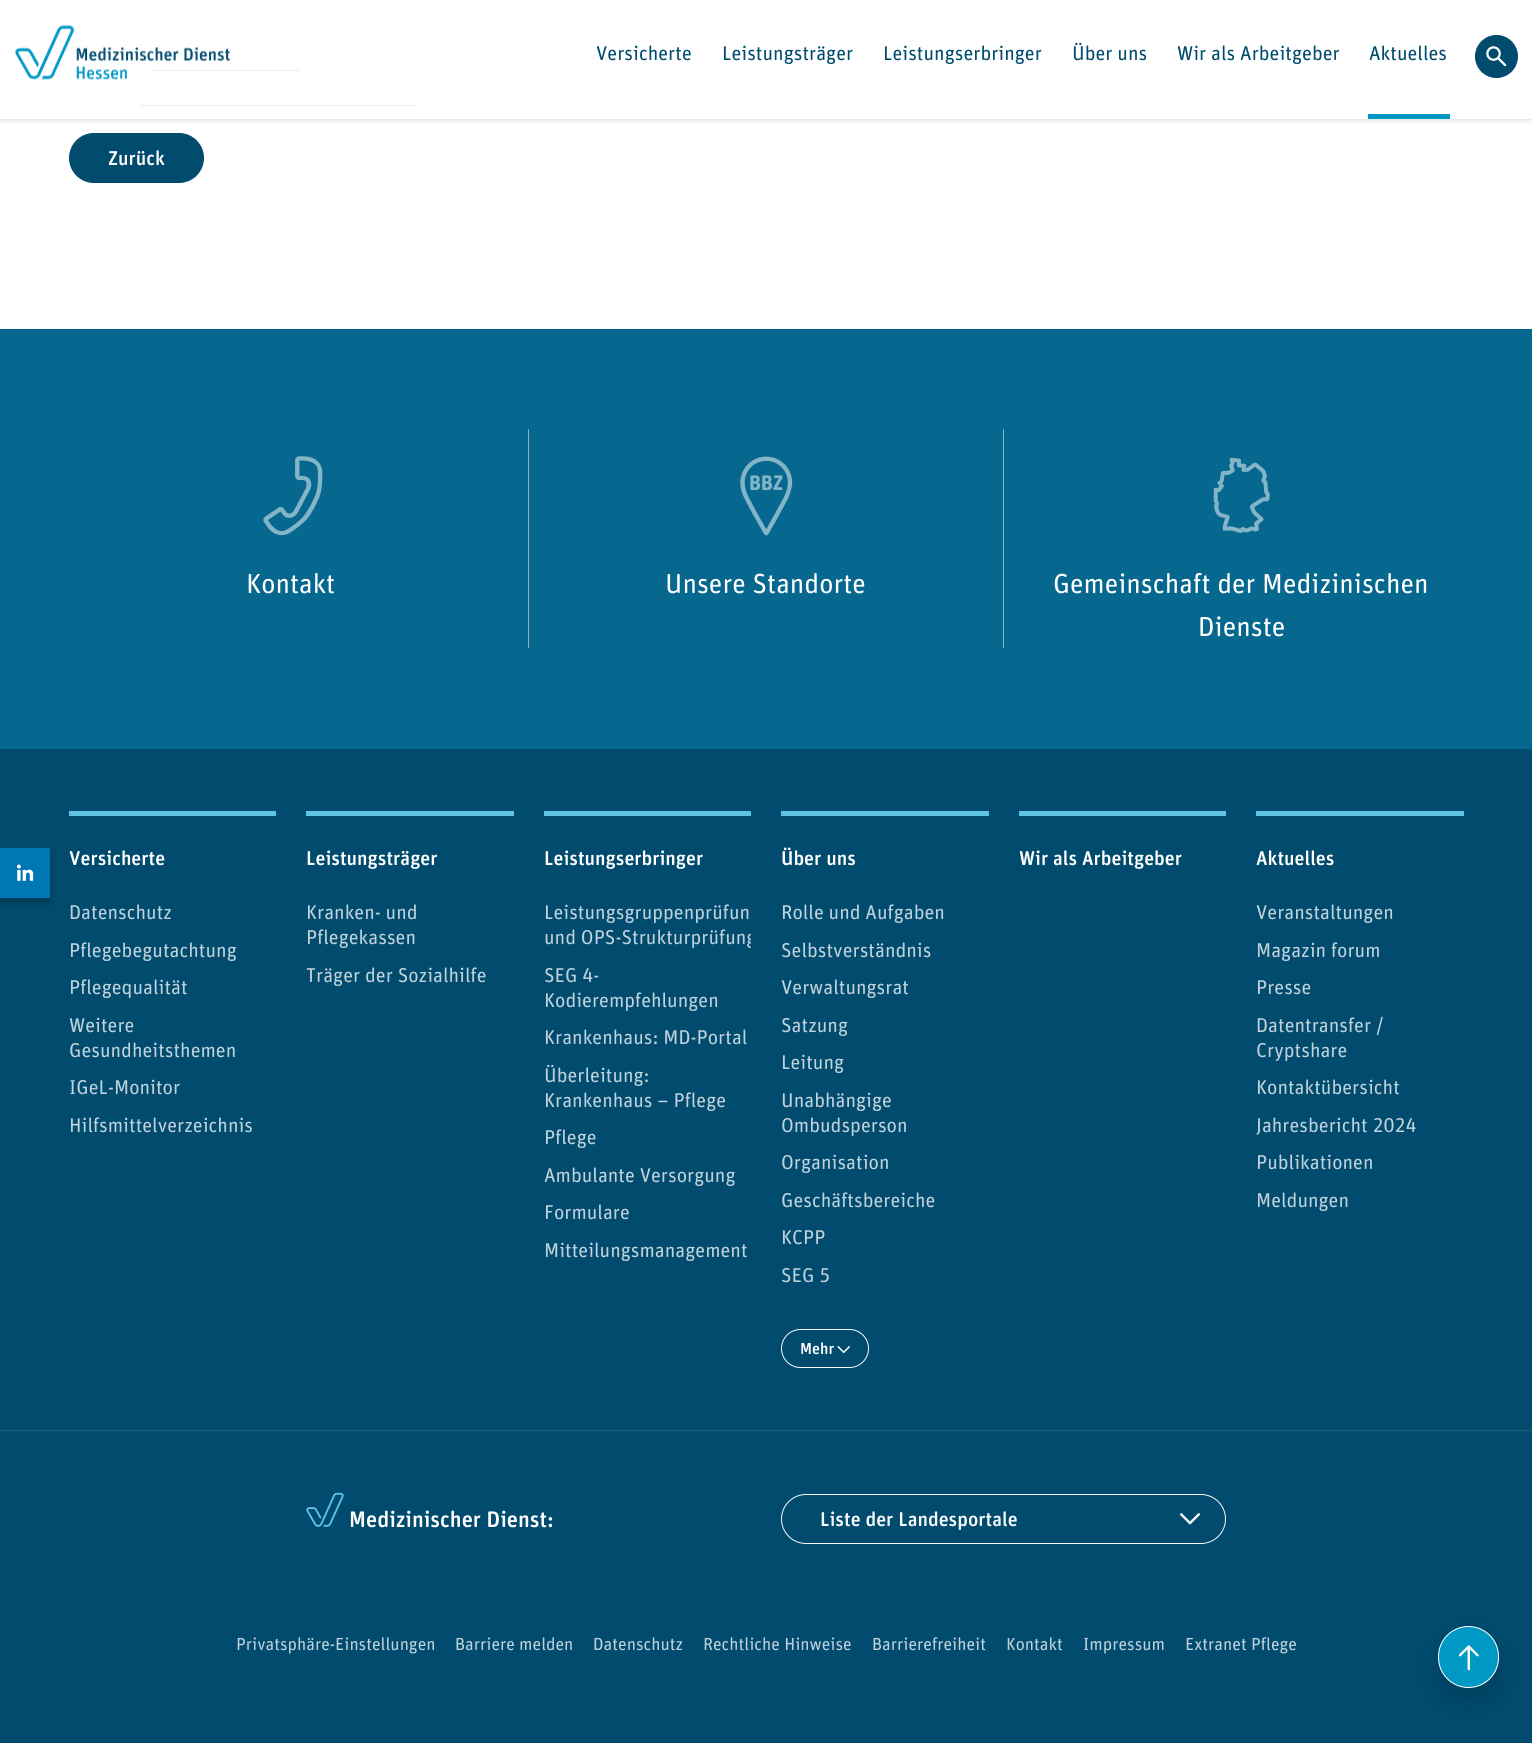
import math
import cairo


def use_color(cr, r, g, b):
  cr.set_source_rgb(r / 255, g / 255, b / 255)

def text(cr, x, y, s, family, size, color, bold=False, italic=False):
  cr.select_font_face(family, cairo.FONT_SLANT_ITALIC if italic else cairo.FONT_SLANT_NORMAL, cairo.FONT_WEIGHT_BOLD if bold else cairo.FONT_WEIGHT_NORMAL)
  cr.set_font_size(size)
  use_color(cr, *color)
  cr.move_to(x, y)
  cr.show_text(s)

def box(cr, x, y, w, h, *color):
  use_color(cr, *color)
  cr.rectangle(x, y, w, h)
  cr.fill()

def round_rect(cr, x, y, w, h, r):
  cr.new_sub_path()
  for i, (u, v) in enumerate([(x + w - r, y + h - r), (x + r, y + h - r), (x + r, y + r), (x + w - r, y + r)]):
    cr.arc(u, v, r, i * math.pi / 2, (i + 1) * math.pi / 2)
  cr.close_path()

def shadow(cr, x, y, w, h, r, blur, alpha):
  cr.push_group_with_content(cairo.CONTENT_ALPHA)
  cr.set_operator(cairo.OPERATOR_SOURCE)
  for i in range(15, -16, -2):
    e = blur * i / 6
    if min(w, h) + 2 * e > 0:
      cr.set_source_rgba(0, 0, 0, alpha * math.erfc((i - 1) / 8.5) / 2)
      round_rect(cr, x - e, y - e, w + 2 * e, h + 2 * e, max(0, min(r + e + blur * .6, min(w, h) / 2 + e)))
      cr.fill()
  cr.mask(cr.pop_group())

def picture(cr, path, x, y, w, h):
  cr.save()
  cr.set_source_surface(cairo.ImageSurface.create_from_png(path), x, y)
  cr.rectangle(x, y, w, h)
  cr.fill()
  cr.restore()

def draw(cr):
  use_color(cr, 255, 255, 255)
  cr.paint()
  box(cr, 151, 70, 149, 1, 6, 104, 143)
  box(cr, 140, 105, 278, 1, 6, 104, 143)
  cr.save()
  cr.set_fill_rule(cairo.FILL_RULE_EVEN_ODD)
  cr.new_path()
  cr.move_to(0, 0)
  cr.line_to(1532, 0)
  cr.line_to(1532, 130)
  cr.line_to(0, 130)
  cr.close_path()
  cr.move_to(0, -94)
  cr.line_to(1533, -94)
  cr.line_to(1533, 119)
  cr.line_to(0, 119)
  cr.close_path()
  cr.clip()
  use_color(cr, 0, 0, 0)
  shadow(cr, 0, -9, 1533, 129, 0, 3, 0.15)
  cr.restore()
  cr.set_source_rgba(1, 1, 1, 0.9)
  cr.rectangle(0, 70, 1532, 49)
  cr.fill()
  picture(cr, "img_01.png", 15, 25, 216, 55)
  box(cr, 1368, 114, 82, 5, 0, 153, 198)
  use_color(cr, 0, 75, 110)
  cr.arc(1496.5, 56.5, 21, 0, 2 * math.pi)
  cr.fill_preserve()
  cr.set_line_width(1)
  cr.stroke()
  picture(cr, "img_02.png", 1486, 46, 21, 21)
  round_rect(cr, 69.5, 133.5, 134, 49, 24.5)
  cr.fill_preserve()
  cr.stroke()
  box(cr, 0, 329, 1532, 420, 6, 104, 143)
  box(cr, 528, 429, 1, 219, 131, 180, 199)
  picture(cr, "img_03.png", 263, 456, 60, 80)
  box(cr, 1003, 429, 1, 219, 131, 180, 199)
  picture(cr, "img_04.png", 740, 456, 53, 80)
  picture(cr, "img_05.png", 1213, 457, 57, 76)
  box(cr, 0, 749, 1532, 994, 0, 75, 110)
  use_color(cr, 0, 0, 0)
  shadow(cr, 0, 853, 50, 50, 0, 2.5, 0.25)
  box(cr, 0, 848, 50, 50, 0, 119, 181)
  picture(cr, "img_06.png", 16, 864, 18, 17)
  box(cr, 0, 1430, 1532, 1, 26, 93, 125)
  box(cr, 69, 811, 207, 5, 94, 196, 225)
  box(cr, 306, 811, 208, 5, 94, 196, 225)
  box(cr, 544, 811, 207, 5, 94, 196, 225)
  box(cr, 781, 811, 208, 5, 94, 196, 225)
  round_rect(cr, 781.5, 1329.5, 87, 38, 19)
  use_color(cr, 248, 249, 250)
  cr.stroke()
  picture(cr, "img_07.png", 837, 1346, 13, 7)
  box(cr, 1019, 811, 207, 5, 94, 196, 225)
  box(cr, 1256, 811, 208, 5, 94, 196, 225)
  picture(cr, "img_08.png", 306, 1492, 38, 35)
  round_rect(cr, 781.5, 1494.5, 444, 49, 24.5)
  use_color(cr, 248, 249, 250)
  cr.stroke()
  picture(cr, "img_09.png", 1180, 1513, 20, 12)
  use_color(cr, 0, 0, 0)
  shadow(cr, 1438, 1639, 61, 61, 30.5, 12.5, 0.15)
  use_color(cr, 0, 153, 198)
  round_rect(cr, 1438.5, 1626.5, 60, 61, 30)
  cr.fill_preserve()
  use_color(cr, 255, 255, 255)
  cr.stroke()
  picture(cr, "img_10.png", 1458, 1645, 21, 26)
  text(cr, 596, 60, "Versicherte", "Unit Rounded", 20, (0, 75, 110))
  text(cr, 722, 60, "Leistungsträger", "Unit Rounded", 20, (0, 75, 110))
  text(cr, 883, 60, "Leistungserbringer", "Unit Rounded", 20, (0, 75, 110))
  text(cr, 1072, 60, "Über uns", "Unit Rounded", 20, (0, 75, 110))
  text(cr, 1177, 60, "Wir als Arbeitgeber", "Unit Rounded", 20, (0, 75, 110))
  text(cr, 1369, 60, "Aktuelles", "Unit Rounded", 20, (0, 75, 110))
  text(cr, 108, 165, "Zurück", "Unit Rounded Medium", 20, (255, 255, 255))
  text(cr, 246, 593, "Kontakt", "Unit Rounded", 27.5, (255, 255, 255))
  text(cr, 665, 593, "Unsere Standorte", "Unit Rounded", 27.5, (255, 255, 255))
  text(cr, 1053, 593, "Gemeinschaft der Medizinischen", "Unit Rounded", 27.5, (255, 255, 255))
  text(cr, 1198, 636, "Dienste", "Unit Rounded", 27.5, (255, 255, 255))
  text(cr, 69, 865, "Versicherte", "Unit Rounded Medium", 20, (255, 255, 255))
  text(cr, 69, 919, "Datenschutz", "Unit Rounded", 20, (191, 210, 219))
  text(cr, 69, 957, "Pflegebegutachtung", "Unit Rounded", 20, (191, 210, 219))
  text(cr, 69, 994, "Pflegequalität", "Unit Rounded", 20, (191, 210, 219))
  text(cr, 69, 1032, "Weitere", "Unit Rounded", 20, (191, 210, 219))
  text(cr, 69, 1057, "Gesundheitsthemen", "Unit Rounded", 20, (191, 210, 219))
  text(cr, 69, 1094, "IGeL-Monitor", "Unit Rounded", 20, (191, 210, 219))
  text(cr, 69, 1132, "Hilfsmittelverzeichnis", "Unit Rounded", 20, (191, 210, 219))
  text(cr, 306, 865, "Leistungsträger", "Unit Rounded Medium", 20, (255, 255, 255))
  text(cr, 306, 919, "Kranken- und", "Unit Rounded", 20, (191, 210, 219))
  text(cr, 306, 944, "Pflegekassen", "Unit Rounded", 20, (191, 210, 219))
  text(cr, 306, 982, "Träger der Sozialhilfe", "Unit Rounded", 20, (191, 210, 219))
  text(cr, 544, 865, "Leistungserbringer", "Unit Rounded Medium", 20, (255, 255, 255))
  text(cr, 544, 919, "Leistungsgruppenprüfun", "Unit Rounded", 20, (191, 210, 219))
  cr.save()
  cr.rectangle(544, 899, 207, 50)
  cr.clip()
  text(cr, 544, 944, "und OPS-Strukturprüfung", "Unit Rounded", 20, (191, 210, 219))
  cr.restore()
  text(cr, 544, 982, "SEG 4-", "Unit Rounded", 20, (191, 210, 219))
  text(cr, 544, 1007, "Kodierempfehlungen", "Unit Rounded", 20, (191, 210, 219))
  text(cr, 544, 1044, "Krankenhaus: MD-Portal", "Unit Rounded", 20, (191, 210, 219))
  text(cr, 544, 1082, "Überleitung:", "Unit Rounded", 20, (191, 210, 219))
  text(cr, 544, 1107, "Krankenhaus – Pflege", "Unit Rounded", 20, (191, 210, 219))
  text(cr, 544, 1144, "Pflege", "Unit Rounded", 20, (191, 210, 219))
  text(cr, 544, 1182, "Ambulante Versorgung", "Unit Rounded", 20, (191, 210, 219))
  text(cr, 544, 1219, "Formulare", "Unit Rounded", 20, (191, 210, 219))
  text(cr, 544, 1257, "Mitteilungsmanagement", "Unit Rounded", 20, (191, 210, 219))
  text(cr, 781, 865, "Über uns", "Unit Rounded Medium", 20, (255, 255, 255))
  text(cr, 781, 919, "Rolle und Aufgaben", "Unit Rounded", 20, (191, 210, 219))
  text(cr, 781, 957, "Selbstverständnis", "Unit Rounded", 20, (191, 210, 219))
  text(cr, 781, 994, "Verwaltungsrat", "Unit Rounded", 20, (191, 210, 219))
  text(cr, 781, 1032, "Satzung", "Unit Rounded", 20, (191, 210, 219))
  text(cr, 781, 1069, "Leitung", "Unit Rounded", 20, (191, 210, 219))
  text(cr, 781, 1107, "Unabhängige", "Unit Rounded", 20, (191, 210, 219))
  text(cr, 781, 1132, "Ombudsperson", "Unit Rounded", 20, (191, 210, 219))
  text(cr, 781, 1169, "Organisation", "Unit Rounded", 20, (191, 210, 219))
  text(cr, 781, 1207, "Geschäftsbereiche", "Unit Rounded", 20, (191, 210, 219))
  text(cr, 781, 1244, "KCPP", "Unit Rounded", 20, (191, 210, 219))
  text(cr, 781, 1282, "SEG 5", "Unit Rounded", 20, (191, 210, 219))
  text(cr, 800, 1354, "Mehr", "Unit Rounded Medium", 16, (255, 255, 255))
  text(cr, 1019, 865, "Wir als Arbeitgeber", "Unit Rounded Medium", 20, (255, 255, 255))
  text(cr, 1256, 865, "Aktuelles", "Unit Rounded Medium", 20, (255, 255, 255))
  text(cr, 1256, 919, "Veranstaltungen", "Unit Rounded", 20, (191, 210, 219))
  text(cr, 1256, 957, "Magazin forum", "Unit Rounded", 20, (191, 210, 219))
  text(cr, 1256, 994, "Presse", "Unit Rounded", 20, (191, 210, 219))
  text(cr, 1256, 1032, "Datentransfer /", "Unit Rounded", 20, (191, 210, 219))
  text(cr, 1256, 1057, "Cryptshare", "Unit Rounded", 20, (191, 210, 219))
  text(cr, 1256, 1094, "Kontaktübersicht", "Unit Rounded", 20, (191, 210, 219))
  text(cr, 1256, 1132, "Jahresbericht 2024", "Unit Rounded", 20, (191, 210, 219))
  text(cr, 1256, 1169, "Publikationen", "Unit Rounded", 20, (191, 210, 219))
  text(cr, 1256, 1207, "Meldungen", "Unit Rounded", 20, (191, 210, 219))
  text(cr, 349, 1527, "Medizinischer Dienst:", "Unit Rounded Medium", 22.5, (255, 255, 255))
  text(cr, 820, 1526, "Liste der Landesportale", "Unit Rounded Medium", 20, (248, 249, 250))
  text(cr, 236, 1650, "Privatsphäre-Einstellungen", "Unit Rounded", 17.5, (191, 210, 219))
  text(cr, 455, 1650, "Barriere melden", "Unit Rounded", 17.5, (191, 210, 219))
  text(cr, 593, 1650, "Datenschutz", "Unit Rounded", 17.5, (191, 210, 219))
  text(cr, 703, 1650, "Rechtliche Hinweise", "Unit Rounded", 17.5, (191, 210, 219))
  text(cr, 872, 1650, "Barrierefreiheit", "Unit Rounded", 17.5, (191, 210, 219))
  text(cr, 1006, 1650, "Kontakt", "Unit Rounded", 17.5, (191, 210, 219))
  text(cr, 1083, 1650, "Impressum", "Unit Rounded", 17.5, (191, 210, 219))
  text(cr, 1185, 1650, "Extranet Pflege", "Unit Rounded", 17.5, (191, 210, 219))


surface = cairo.ImageSurface(cairo.FORMAT_RGB24, 1532, 1743)
cr = cairo.Context(surface)
options = cairo.FontOptions()
options.set_hint_metrics(cairo.HINT_METRICS_OFF)
options.set_hint_style(cairo.HINT_STYLE_NONE)
cr.set_font_options(options)
cr.set_miter_limit(4)
draw(cr)
surface.write_to_png("out.png")
